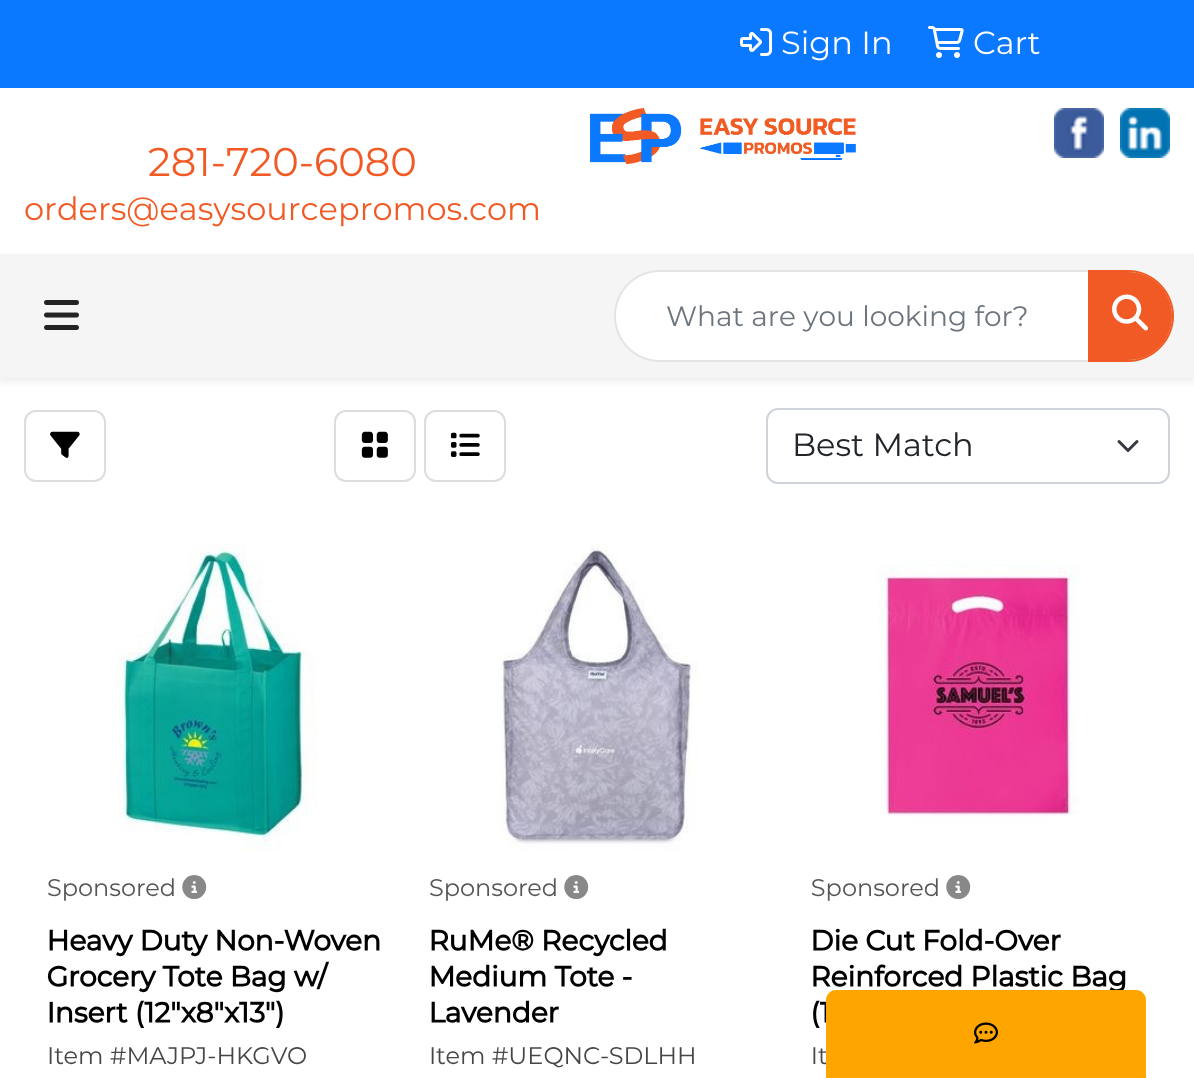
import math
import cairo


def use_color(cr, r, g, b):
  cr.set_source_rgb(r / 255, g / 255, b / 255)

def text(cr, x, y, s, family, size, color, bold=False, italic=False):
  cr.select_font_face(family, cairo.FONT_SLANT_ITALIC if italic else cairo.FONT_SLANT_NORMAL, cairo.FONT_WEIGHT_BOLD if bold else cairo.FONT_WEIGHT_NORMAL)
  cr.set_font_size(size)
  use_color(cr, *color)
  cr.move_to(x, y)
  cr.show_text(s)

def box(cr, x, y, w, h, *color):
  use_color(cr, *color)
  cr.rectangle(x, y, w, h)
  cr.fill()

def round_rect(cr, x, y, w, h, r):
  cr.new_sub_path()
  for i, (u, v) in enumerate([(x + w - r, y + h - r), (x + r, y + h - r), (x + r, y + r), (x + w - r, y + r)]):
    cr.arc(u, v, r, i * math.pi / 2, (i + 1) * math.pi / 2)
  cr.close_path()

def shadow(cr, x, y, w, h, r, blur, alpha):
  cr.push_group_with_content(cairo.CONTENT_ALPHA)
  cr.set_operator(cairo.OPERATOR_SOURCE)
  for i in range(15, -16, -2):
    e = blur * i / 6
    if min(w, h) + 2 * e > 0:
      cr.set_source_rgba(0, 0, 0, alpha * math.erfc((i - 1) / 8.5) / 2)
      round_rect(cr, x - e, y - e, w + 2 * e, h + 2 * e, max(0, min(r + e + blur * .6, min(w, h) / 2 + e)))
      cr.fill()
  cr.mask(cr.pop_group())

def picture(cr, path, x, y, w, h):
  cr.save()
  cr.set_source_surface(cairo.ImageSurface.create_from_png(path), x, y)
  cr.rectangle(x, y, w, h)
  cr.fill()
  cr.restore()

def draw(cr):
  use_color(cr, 255, 255, 255)
  cr.paint()
  box(cr, 0, 0, 1194, 88, 10, 120, 255)
  picture(cr, "img_01.png", 740, 28, 32, 28)
  picture(cr, "img_02.png", 928, 26, 36, 32)
  picture(cr, "img_03.png", 590, 108, 266, 56)
  picture(cr, "img_04.png", 1054, 108, 50, 50)
  picture(cr, "img_05.png", 1120, 108, 50, 50)
  use_color(cr, 0, 0, 0)
  shadow(cr, 0, 258, 1194, 124, 0, 4, 0.07)
  box(cr, 0, 254, 1194, 124, 245, 245, 245)
  picture(cr, "img_06.png", 44, 300, 35, 30)
  use_color(cr, 255, 255, 255)
  cr.new_path()
  cr.move_to(660, 271)
  cr.line_to(1089, 271)
  cr.line_to(1089, 361)
  cr.line_to(660, 361)
  cr.curve_to(635, 361, 615, 341, 615, 316)
  cr.curve_to(615, 291, 635, 271, 660, 271)
  cr.close_path()
  cr.fill_preserve()
  use_color(cr, 228, 228, 228)
  cr.stroke()
  use_color(cr, 241, 90, 36)
  cr.new_path()
  cr.move_to(1088, 272)
  cr.line_to(1128, 272)
  cr.curve_to(1152.5, 272, 1172, 291.5, 1172, 316)
  cr.curve_to(1172, 340.5, 1152.5, 360, 1128, 360)
  cr.line_to(1088, 360)
  cr.close_path()
  cr.fill()
  cr.set_fill_rule(cairo.FILL_RULE_EVEN_ODD)
  cr.new_path()
  cr.move_to(1088, 270)
  cr.line_to(1128, 270)
  cr.curve_to(1153, 270, 1174, 291, 1174, 316)
  cr.curve_to(1174, 341, 1153, 362, 1128, 362)
  cr.line_to(1088, 362)
  cr.close_path()
  cr.move_to(1088, 272)
  cr.line_to(1128, 272)
  cr.curve_to(1152, 272, 1172, 292, 1172, 316)
  cr.curve_to(1172, 340, 1152, 360, 1128, 360)
  cr.line_to(1088, 360)
  cr.close_path()
  cr.fill()
  picture(cr, "img_07.png", 1112, 294, 36, 37)
  picture(cr, "img_08.png", 24, 408, 1146, 660)
  use_color(cr, 255, 165, 0)
  cr.new_path()
  cr.move_to(836, 990)
  cr.line_to(1136, 990)
  cr.curve_to(1141.5, 990, 1146, 994.5, 1146, 1000)
  cr.line_to(1146, 1078)
  cr.line_to(826, 1078)
  cr.line_to(826, 1000)
  cr.curve_to(826, 994.5, 830.5, 990, 836, 990)
  cr.close_path()
  cr.fill()
  picture(cr, "img_09.png", 974, 1022, 24, 22)
  text(cr, 781, 54, "Sign In", "Montserrat Thin", 32, (255, 255, 255))
  text(cr, 973, 54, "Cart", "Montserrat Thin", 32, (255, 255, 255))
  text(cr, 148, 176, "281-720-6080", "Montserrat Thin", 40, (241, 90, 36))
  text(cr, 24, 220, "orders@easysourcepromos.com", "Montserrat Thin", 32, (241, 90, 36))
  text(cr, 666, 326, "What are you looking for?", "Montserrat Thin", 28, (108, 117, 125))


surface = cairo.ImageSurface(cairo.FORMAT_RGB24, 1194, 1078)
cr = cairo.Context(surface)
options = cairo.FontOptions()
options.set_hint_metrics(cairo.HINT_METRICS_OFF)
options.set_hint_style(cairo.HINT_STYLE_NONE)
cr.set_font_options(options)
cr.set_miter_limit(4)
draw(cr)
surface.write_to_png("out.png")
